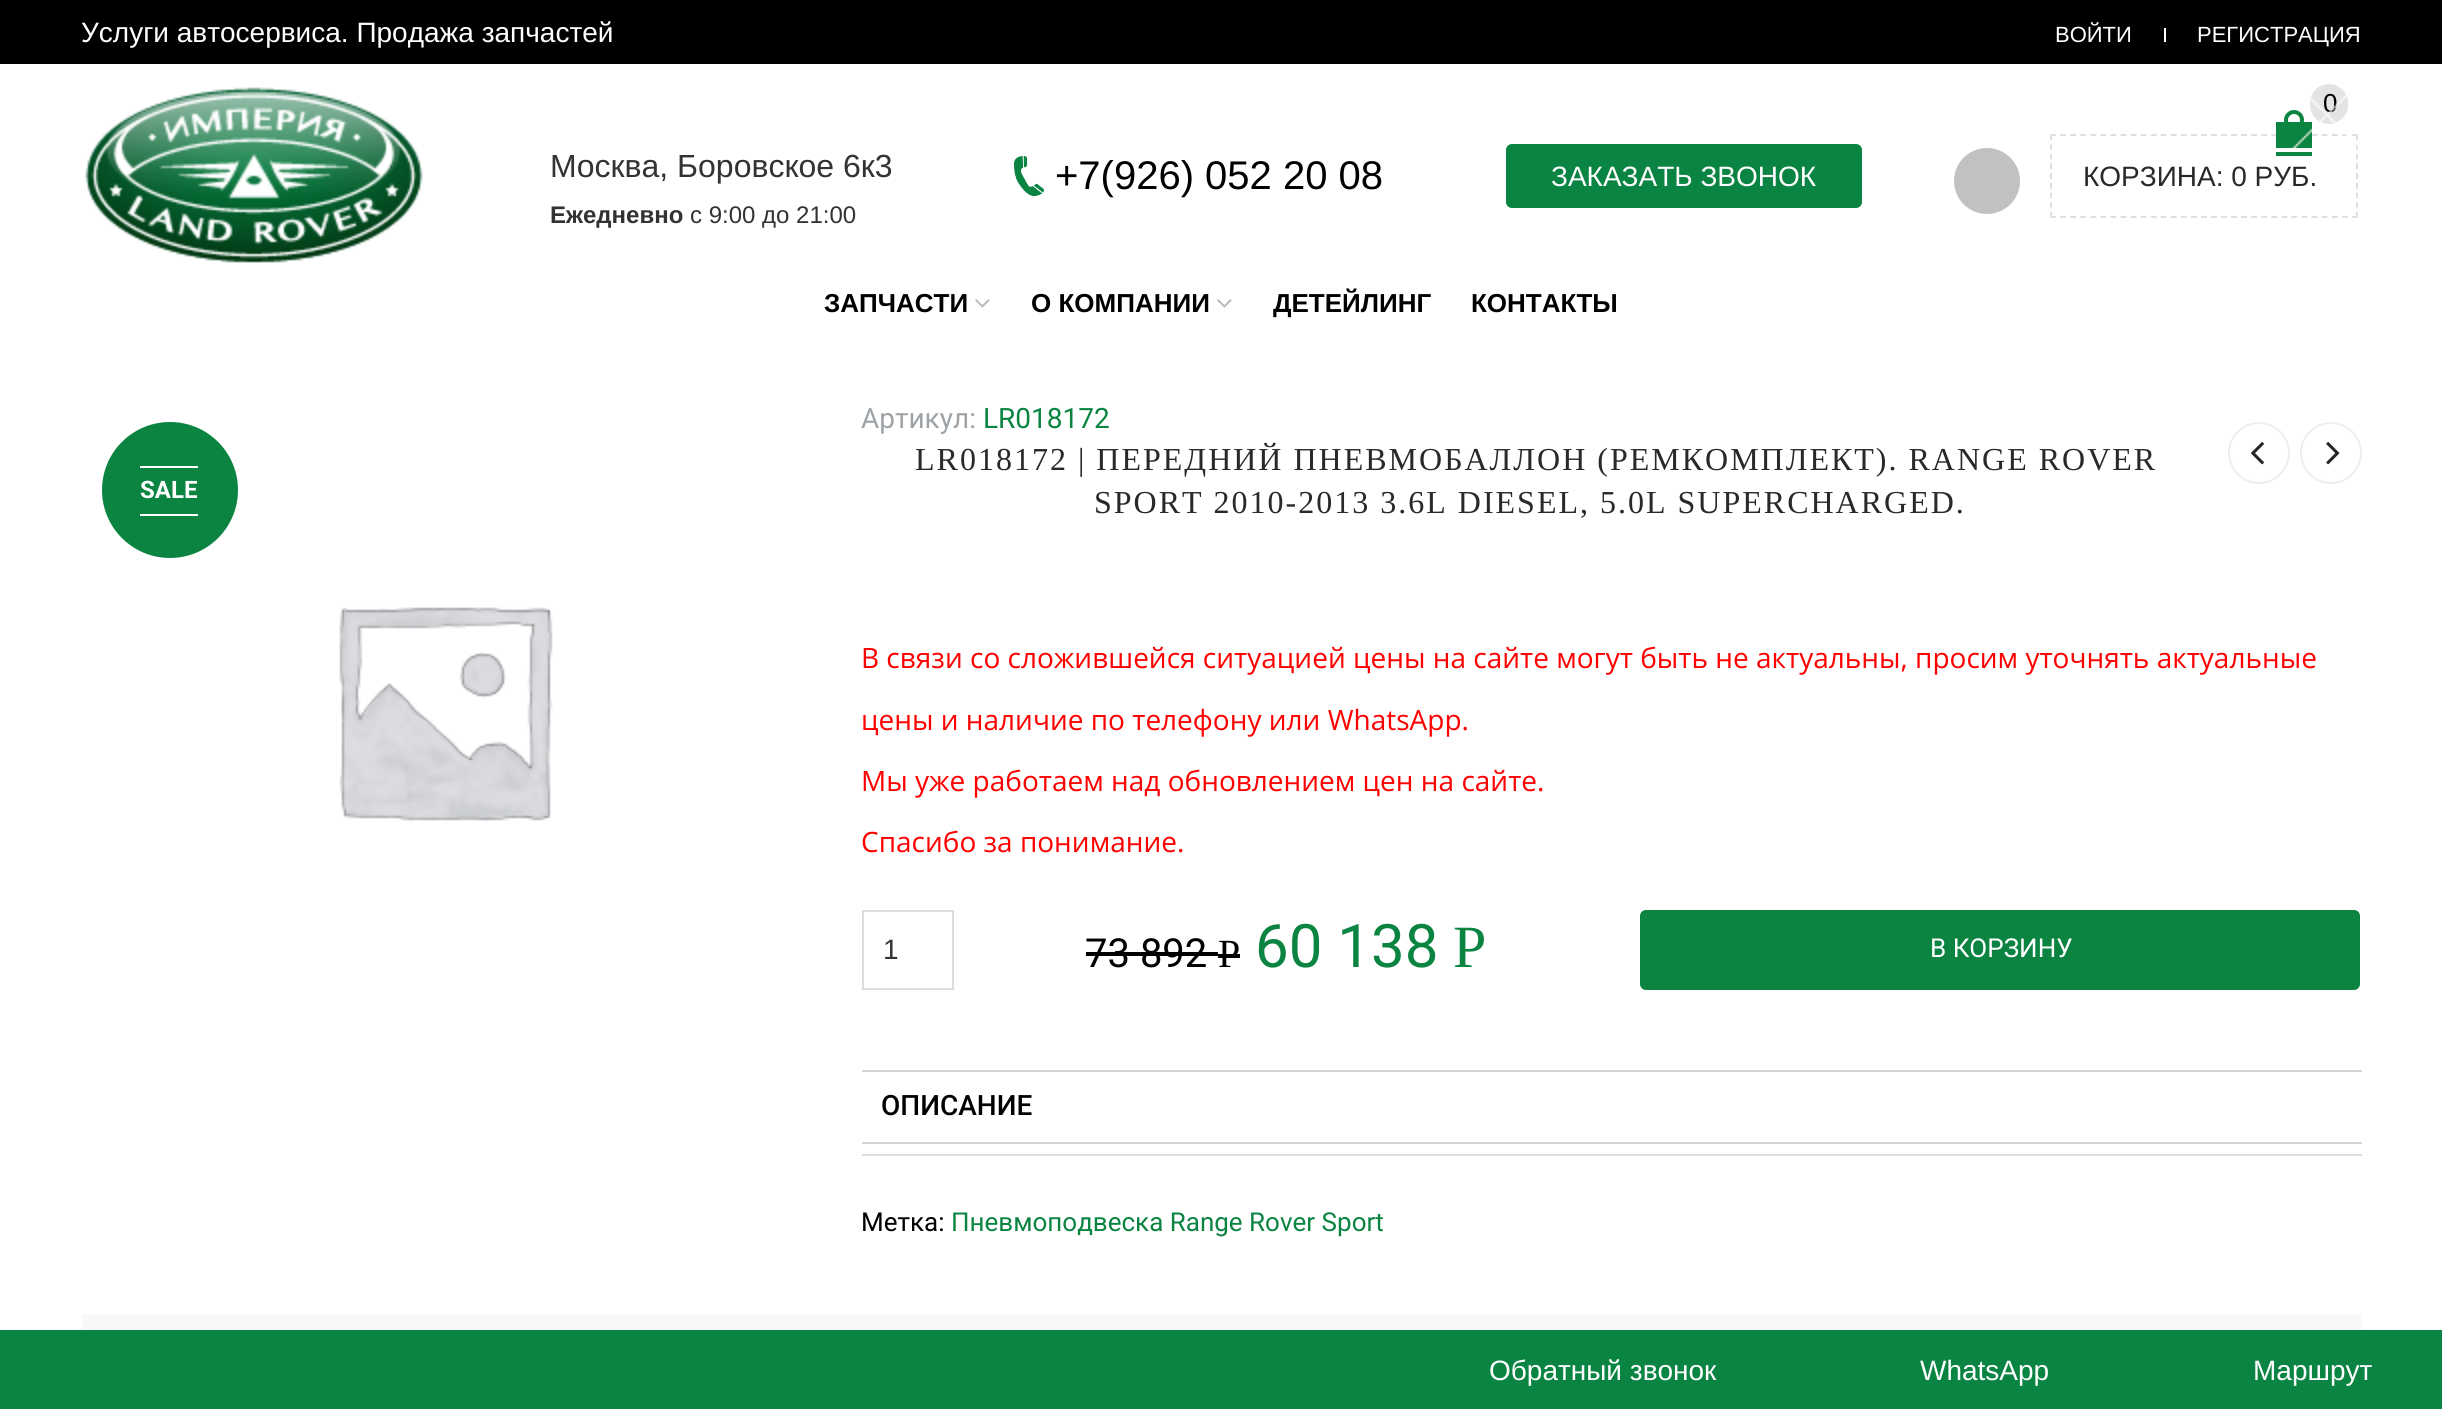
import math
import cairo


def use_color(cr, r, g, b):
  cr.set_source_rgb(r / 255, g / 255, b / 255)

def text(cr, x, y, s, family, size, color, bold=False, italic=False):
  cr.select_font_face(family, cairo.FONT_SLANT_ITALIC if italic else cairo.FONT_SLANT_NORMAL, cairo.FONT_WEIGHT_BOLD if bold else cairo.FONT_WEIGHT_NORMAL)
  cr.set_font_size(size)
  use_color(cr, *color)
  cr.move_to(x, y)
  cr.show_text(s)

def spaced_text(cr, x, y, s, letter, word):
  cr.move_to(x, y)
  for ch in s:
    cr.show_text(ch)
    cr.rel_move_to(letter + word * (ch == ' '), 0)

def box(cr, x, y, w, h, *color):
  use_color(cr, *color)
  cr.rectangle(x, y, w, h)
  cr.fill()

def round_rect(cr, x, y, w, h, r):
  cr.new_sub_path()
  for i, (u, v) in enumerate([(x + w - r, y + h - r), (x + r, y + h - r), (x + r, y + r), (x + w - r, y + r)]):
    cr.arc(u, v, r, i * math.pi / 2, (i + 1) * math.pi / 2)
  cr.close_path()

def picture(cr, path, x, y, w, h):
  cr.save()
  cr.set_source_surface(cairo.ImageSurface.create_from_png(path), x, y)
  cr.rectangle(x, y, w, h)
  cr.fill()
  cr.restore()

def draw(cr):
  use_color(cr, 255, 255, 255)
  cr.paint()
  box(cr, 0, 0, 2442, 64, 0, 0, 0)
  box(cr, 2164, 28, 2, 14, 255, 255, 255)
  picture(cr, "img_01.png", 85, 87, 338, 176)
  picture(cr, "img_02.png", 1014, 156, 30, 40)
  use_color(cr, 10, 132, 66)
  round_rect(cr, 1506, 144, 356, 64, 6)
  cr.fill()
  use_color(cr, 193, 193, 193)
  cr.arc(1987, 181, 33, 0, 2 * math.pi)
  cr.fill()
  cr.new_path()
  cr.move_to(2050, 135)
  cr.line_to(2358, 135)
  use_color(cr, 223, 223, 223)
  cr.set_dash([6, 4.06])
  cr.stroke()
  cr.new_path()
  cr.move_to(2357, 134)
  cr.line_to(2357, 218)
  cr.set_dash([6, 3.76])
  cr.stroke()
  cr.new_path()
  cr.move_to(2050, 217)
  cr.line_to(2358, 217)
  cr.set_dash([6, 4.06])
  cr.stroke()
  cr.new_path()
  cr.move_to(2051, 134)
  cr.line_to(2051, 218)
  cr.set_dash([6, 3.76])
  cr.stroke()
  box(cr, 2276, 122, 36, 26, 11, 132, 66)
  use_color(cr, 228, 228, 228)
  round_rect(cr, 2310, 84, 38, 40, 19)
  cr.fill()
  box(cr, 2276, 152, 36, 4, 11, 132, 66)
  picture(cr, "img_03.png", 975, 299, 15, 9)
  picture(cr, "img_03.png", 1217, 299, 15, 9)
  cr.arc(170, 490, 68, 0, 2 * math.pi)
  cr.fill()
  box(cr, 140, 466, 58, 2, 255, 255, 255)
  box(cr, 140, 514, 58, 2, 255, 255, 255)
  picture(cr, "img_04.png", 339, 607, 214, 214)
  cr.arc(2259, 453, 30, 0, 2 * math.pi)
  use_color(cr, 238, 238, 238)
  cr.set_dash([])
  cr.stroke()
  picture(cr, "img_05.png", 2251, 442, 13, 23)
  cr.arc(2331, 453, 30, 0, 2 * math.pi)
  cr.stroke()
  picture(cr, "img_06.png", 2326, 442, 14, 23)
  cr.rectangle(863, 911, 90, 78)
  use_color(cr, 221, 221, 221)
  cr.stroke()
  box(cr, 1086, 952, 132, 4, 0, 0, 0)
  box(cr, 1218, 954, 22, 4, 0, 0, 0)
  use_color(cr, 11, 132, 66)
  round_rect(cr, 1640, 910, 720, 80, 6)
  cr.fill()
  box(cr, 862, 1154, 1500, 2, 221, 221, 221)
  box(cr, 862, 1070, 1500, 2, 213, 213, 213)
  box(cr, 862, 1142, 1500, 2, 213, 213, 213)
  box(cr, 82, 1314, 2280, 16, 248, 248, 248)
  box(cr, 0, 1330, 2442, 79, 10, 132, 66)
  text(cr, 81, 42, "Услуги автосервиса. Продажа запчастей", "Liberation Sans", 28, (255, 255, 255))
  text(cr, 2055, 42, "ВОЙТИ", "Liberation Sans", 22, (255, 255, 255))
  text(cr, 2197, 42, "РЕГИСТРАЦИЯ", "Liberation Sans", 22, (255, 255, 255))
  text(cr, 550, 177, "Москва, Боровское 6к3", "Liberation Sans", 32, (51, 51, 51))
  text(cr, 550, 223, "Ежедневно", "Liberation Sans", 24, (51, 51, 51), bold=True)
  text(cr, 690, 223, "с 9:00 до 21:00", "Liberation Sans", 24, (51, 51, 51))
  text(cr, 1055, 189, "+7(926) 052 20 08", "Liberation Sans", 40, (0, 0, 0))
  text(cr, 1551, 186, "ЗАКАЗАТЬ ЗВОНОК", "Liberation Sans", 28, (255, 255, 255))
  text(cr, 2323, 112, "0", "Liberation Sans", 26, (0, 0, 0))
  text(cr, 2083, 186, "КОРЗИНА: 0 РУБ.", "Liberation Sans", 28, (41, 41, 41))
  text(cr, 824, 312, "ЗАПЧАСТИ", "Liberation Sans", 26, (0, 0, 0), bold=True)
  text(cr, 1031, 312, "О КОМПАНИИ", "Liberation Sans", 26, (0, 0, 0), bold=True)
  text(cr, 1273, 312, "ДЕТЕЙЛИНГ", "Liberation Sans", 26, (0, 0, 0), bold=True)
  text(cr, 1471, 312, "КОНТАКТЫ", "Liberation Sans", 26, (0, 0, 0), bold=True)
  text(cr, 140, 498, "SALE", "Roboto", 24, (255, 255, 255), bold=True)
  text(cr, 861, 428, "Артикул:", "Roboto", 28, (158, 163, 168))
  text(cr, 983, 428, "LR018172", "Roboto", 28, (11, 132, 66))
  text(cr, 861, 1231, "Метка:", "Roboto", 26, (0, 0, 0))
  text(cr, 951, 1231, "Пневмоподвеска Range Rover Sport", "Roboto", 26, (11, 132, 66))
  cr.select_font_face("Liberation Serif")
  cr.set_font_size(32)
  use_color(cr, 41, 41, 41)
  spaced_text(cr, 915, 470, "LR018172 | ПЕРЕДНИЙ ПНЕВМОБАЛЛОН (РЕМКОМПЛЕКТ). RANGE ROVER", 2, 0)
  spaced_text(cr, 1094, 513, "SPORT 2010-2013 3.6L DIESEL, 5.0L SUPERCHARGED.", 2, 0)
  text(cr, 861, 668, "В связи со сложившейся ситуацией цены на сайте могут быть не актуальны, просим уточнять актуальные", "Open Sans", 28, (255, 0, 0))
  text(cr, 861, 730, "цены и наличие по телефону или WhatsApp.", "Open Sans", 28, (255, 0, 0))
  text(cr, 861, 791, "Мы уже работаем над обновлением цен на сайте.", "Open Sans", 28, (255, 0, 0))
  text(cr, 861, 852, "Спасибо за понимание.", "Open Sans", 28, (255, 0, 0))
  text(cr, 883, 959, "1", "Liberation Sans", 28, (51, 51, 51))
  text(cr, 1085, 967, "73 892", "Roboto", 40, (0, 0, 0))
  text(cr, 1218, 967, "Р", "Liberation Serif", 40, (0, 0, 0))
  text(cr, 1255, 967, "60 138", "Roboto", 60, (11, 132, 66))
  text(cr, 1453, 967, "Р", "Liberation Serif", 60, (11, 132, 66))
  text(cr, 1930, 957, "В КОРЗИНУ", "Roboto", 26, (255, 255, 255))
  text(cr, 881, 1115, "ОПИСАНИЕ", "Roboto Medium", 28, (0, 0, 0))
  picture(cr, "img_07.png", 2292, 94, 66, 54)
  cr.arc(2294, 120, 8, 0, 2 * math.pi)
  use_color(cr, 11, 132, 66)
  cr.set_line_width(4)
  cr.stroke()
  text(cr, 1489, 1380, "Обратный звонок", "Liberation Sans", 28, (255, 255, 255))
  text(cr, 1920, 1380, "WhatsApp", "Liberation Sans", 28, (255, 255, 255))
  text(cr, 2253, 1380, "Маршрут", "Liberation Sans", 28, (255, 255, 255))


surface = cairo.ImageSurface(cairo.FORMAT_RGB24, 2442, 1409)
cr = cairo.Context(surface)
options = cairo.FontOptions()
options.set_hint_metrics(cairo.HINT_METRICS_OFF)
options.set_hint_style(cairo.HINT_STYLE_NONE)
cr.set_font_options(options)
cr.set_miter_limit(4)
draw(cr)
surface.write_to_png("out.png")
